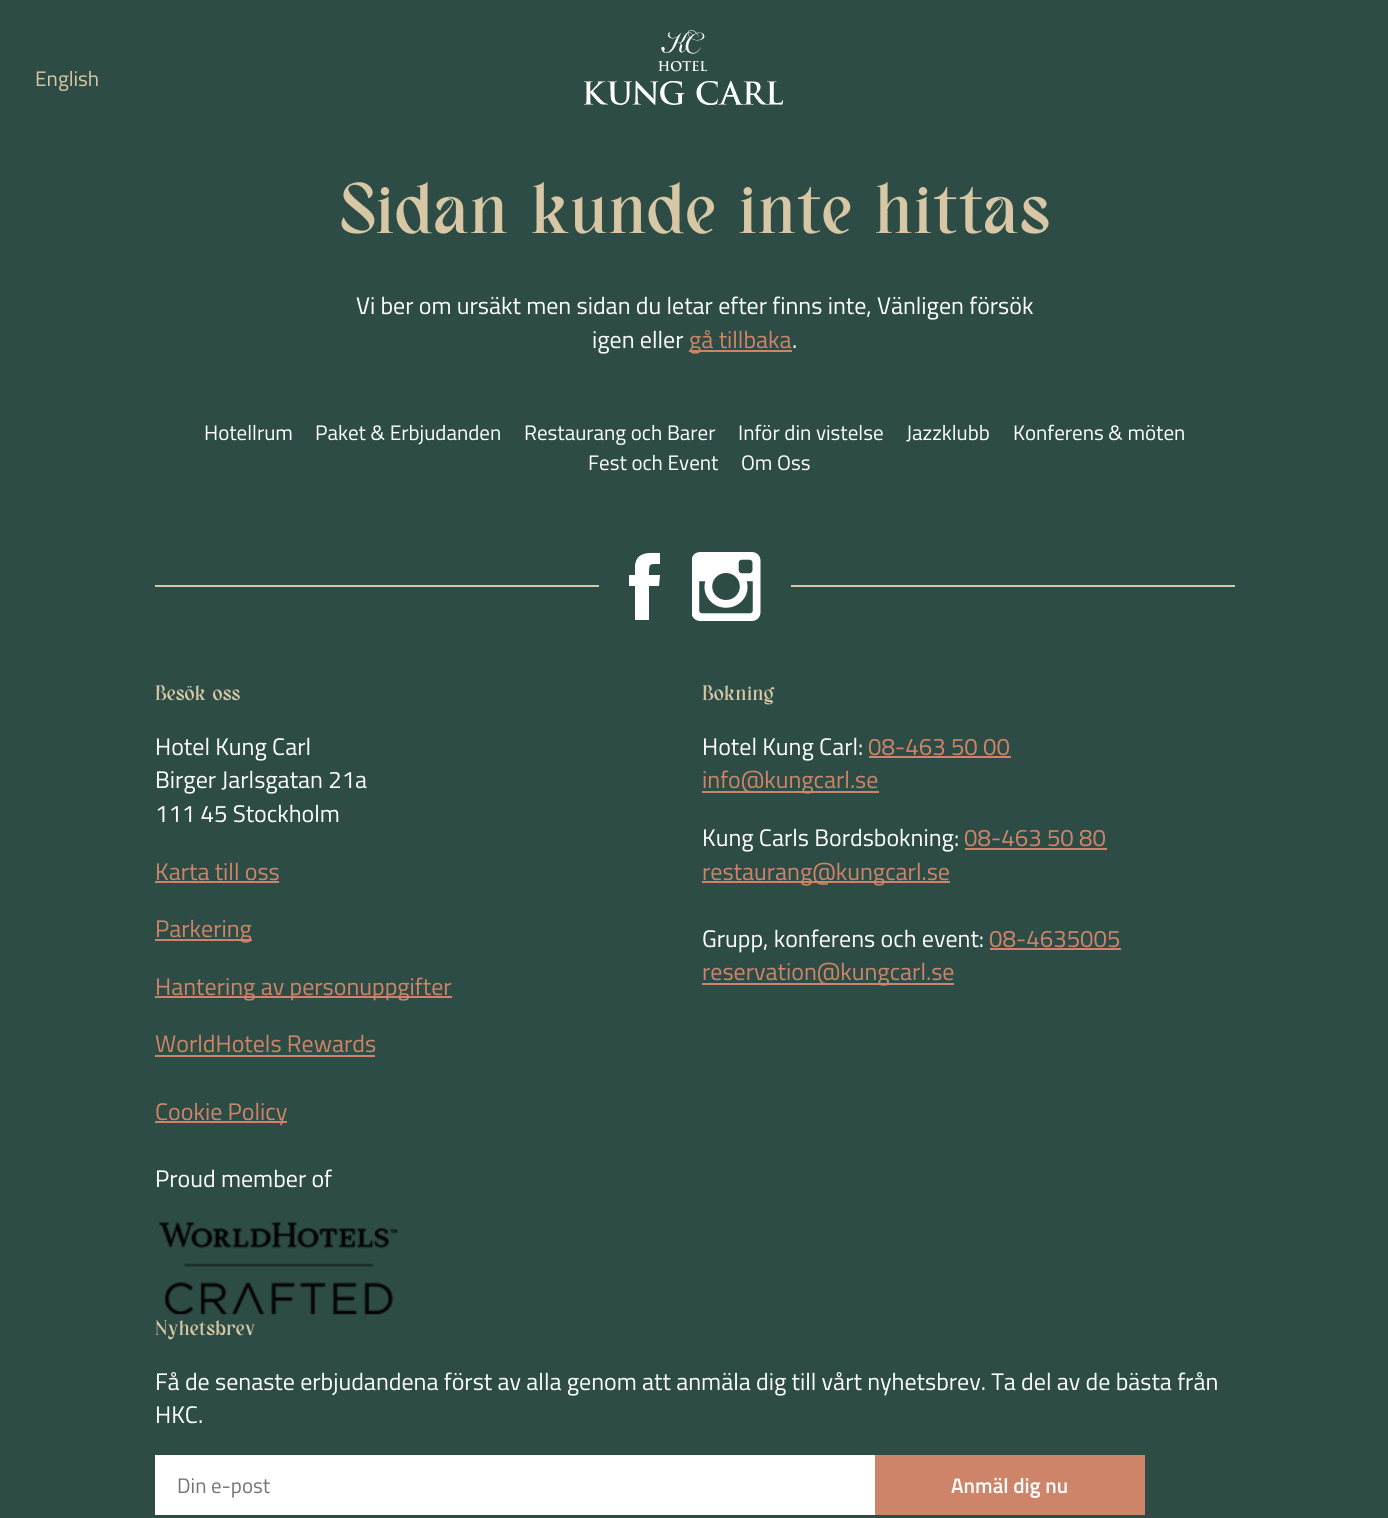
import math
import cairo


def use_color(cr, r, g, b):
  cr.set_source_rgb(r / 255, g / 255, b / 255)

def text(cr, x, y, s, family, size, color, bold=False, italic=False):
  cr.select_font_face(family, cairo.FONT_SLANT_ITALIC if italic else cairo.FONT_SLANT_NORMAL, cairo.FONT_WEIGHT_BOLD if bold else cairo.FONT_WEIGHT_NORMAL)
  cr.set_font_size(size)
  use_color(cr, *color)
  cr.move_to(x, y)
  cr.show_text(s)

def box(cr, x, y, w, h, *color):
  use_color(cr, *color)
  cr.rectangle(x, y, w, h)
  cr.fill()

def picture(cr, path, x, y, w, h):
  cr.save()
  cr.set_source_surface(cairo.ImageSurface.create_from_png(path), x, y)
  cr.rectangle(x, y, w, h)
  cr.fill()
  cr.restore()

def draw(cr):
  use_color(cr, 46, 76, 70)
  cr.paint()
  picture(cr, "img_01.png", 584, 30, 199, 75)
  box(cr, 689, 350, 103, 2, 206, 132, 104)
  box(cr, 155, 585, 1080, 2, 216, 199, 165)
  box(cr, 599, 585, 192, 2, 46, 76, 70)
  cr.save()
  cr.rectangle(629, 552, 31, 69)
  cr.clip()
  use_color(cr, 255, 255, 255)
  cr.new_path()
  cr.move_to(660, 575)
  cr.line_to(649, 575)
  cr.curve_to(649, 563, 649, 564, 660, 564)
  cr.line_to(660, 553)
  cr.curve_to(650, 553, 637, 551, 635, 565)
  cr.line_to(635, 575)
  cr.line_to(628, 575)
  cr.line_to(628, 586)
  cr.line_to(635, 586)
  cr.line_to(635, 620)
  cr.line_to(649, 620)
  cr.line_to(649, 586)
  cr.line_to(659, 586)
  cr.close_path()
  cr.fill()
  cr.restore()
  picture(cr, "img_02.png", 692, 552, 69, 69)
  box(cr, 155, 881, 124, 2, 206, 132, 104)
  box(cr, 155, 939, 97, 2, 206, 132, 104)
  box(cr, 155, 996, 297, 2, 206, 132, 104)
  box(cr, 155, 1055, 220, 2, 206, 132, 104)
  box(cr, 155, 1121, 132, 2, 206, 132, 104)
  picture(cr, "img_03.png", 158, 1222, 240, 93)
  box(cr, 869, 756, 142, 2, 206, 132, 104)
  box(cr, 702, 791, 177, 2, 206, 132, 104)
  box(cr, 965, 848, 142, 2, 206, 132, 104)
  box(cr, 702, 881, 248, 2, 206, 132, 104)
  box(cr, 990, 948, 131, 2, 206, 132, 104)
  box(cr, 702, 983, 252, 2, 206, 132, 104)
  box(cr, 155, 1455, 720, 60, 255, 255, 255)
  box(cr, 875, 1455, 270, 60, 206, 132, 104)
  text(cr, 35, 86, "English", "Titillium", 21, (216, 199, 165))
  text(cr, 339, 233, "Sidan kunde inte hittas", "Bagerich", 72, (216, 199, 165))
  text(cr, 356, 314, "Vi ber om ursäkt men sidan du letar efter finns inte, Vänligen försök", "Titillium", 24, (255, 255, 255))
  text(cr, 592, 348, "igen eller", "Titillium", 24, (255, 255, 255))
  text(cr, 689, 348, "gå tillbaka", "Titillium", 24, (206, 132, 104))
  text(cr, 792, 348, ".", "Titillium", 24, (255, 255, 255))
  text(cr, 204, 440, "Hotellrum", "Titillium", 21, (255, 255, 255))
  text(cr, 315, 440, "Paket & Erbjudanden", "Titillium", 21, (255, 255, 255))
  text(cr, 524, 440, "Restaurang och Barer", "Titillium", 21, (255, 255, 255))
  text(cr, 738, 440, "Inför din vistelse", "Titillium", 21, (255, 255, 255))
  text(cr, 906, 440, "Jazzklubb", "Titillium", 21, (255, 255, 255))
  text(cr, 1013, 440, "Konferens & möten", "Titillium", 21, (255, 255, 255))
  text(cr, 588, 470, "Fest och Event", "Titillium", 21, (255, 255, 255))
  text(cr, 741, 470, "Om Oss", "Titillium", 21, (255, 255, 255))
  text(cr, 155, 700, "Besök oss", "Bagerich", 21, (216, 199, 165))
  text(cr, 155, 755, "Hotel Kung Carl", "Titillium", 24, (255, 255, 255))
  text(cr, 155, 788, "Birger Jarlsgatan 21a", "Titillium", 24, (255, 255, 255))
  text(cr, 155, 822, "111 45 Stockholm", "Titillium", 24, (255, 255, 255))
  text(cr, 155, 880, "Karta till oss", "Titillium", 24, (206, 132, 104))
  text(cr, 155, 937, "Parkering", "Titillium", 24, (206, 132, 104))
  text(cr, 155, 995, "Hantering av personuppgifter", "Titillium", 24, (206, 132, 104))
  text(cr, 155, 1052, "WorldHotels Rewards", "Titillium", 24, (206, 132, 104))
  text(cr, 155, 1120, "Cookie Policy", "Titillium", 24, (206, 132, 104))
  text(cr, 155, 1187, "Proud member of", "Titillium", 24, (255, 255, 255))
  text(cr, 702, 700, "Bokning", "Bagerich", 21, (216, 199, 165))
  text(cr, 702, 755, "Hotel Kung Carl:", "Titillium", 24, (255, 255, 255))
  text(cr, 868, 755, "08-463 50 00", "Titillium", 24, (206, 132, 104))
  text(cr, 702, 788, "info@kungcarl.se", "Titillium", 24, (206, 132, 104))
  text(cr, 702, 846, "Kung Carls Bordsbokning:", "Titillium", 24, (255, 255, 255))
  text(cr, 964, 846, "08-463 50 80", "Titillium", 24, (206, 132, 104))
  text(cr, 702, 880, "restaurang@kungcarl.se", "Titillium", 24, (206, 132, 104))
  text(cr, 702, 947, "Grupp, konferens och event:", "Titillium", 24, (255, 255, 255))
  text(cr, 989, 947, "08-4635005", "Titillium", 24, (206, 132, 104))
  text(cr, 702, 980, "reservation@kungcarl.se", "Titillium", 24, (206, 132, 104))
  text(cr, 155, 1335, "Nyhetsbrev", "Bagerich", 21, (216, 199, 165))
  text(cr, 155, 1390, "Få de senaste erbjudandena först av alla genom att anmäla dig till vårt nyhetsbrev. Ta del av de bästa från", "Titillium", 24, (255, 255, 255))
  text(cr, 155, 1423, "HKC.", "Titillium", 24, (255, 255, 255))
  text(cr, 177, 1493, "Din e-post", "Titillium", 21, (117, 117, 117))
  text(cr, 951, 1493, "Anmäl dig nu", "Titillium SemiBold", 21, (255, 255, 255))


surface = cairo.ImageSurface(cairo.FORMAT_RGB24, 1388, 1518)
cr = cairo.Context(surface)
options = cairo.FontOptions()
options.set_hint_metrics(cairo.HINT_METRICS_OFF)
options.set_hint_style(cairo.HINT_STYLE_NONE)
cr.set_font_options(options)
cr.set_miter_limit(4)
draw(cr)
surface.write_to_png("out.png")
